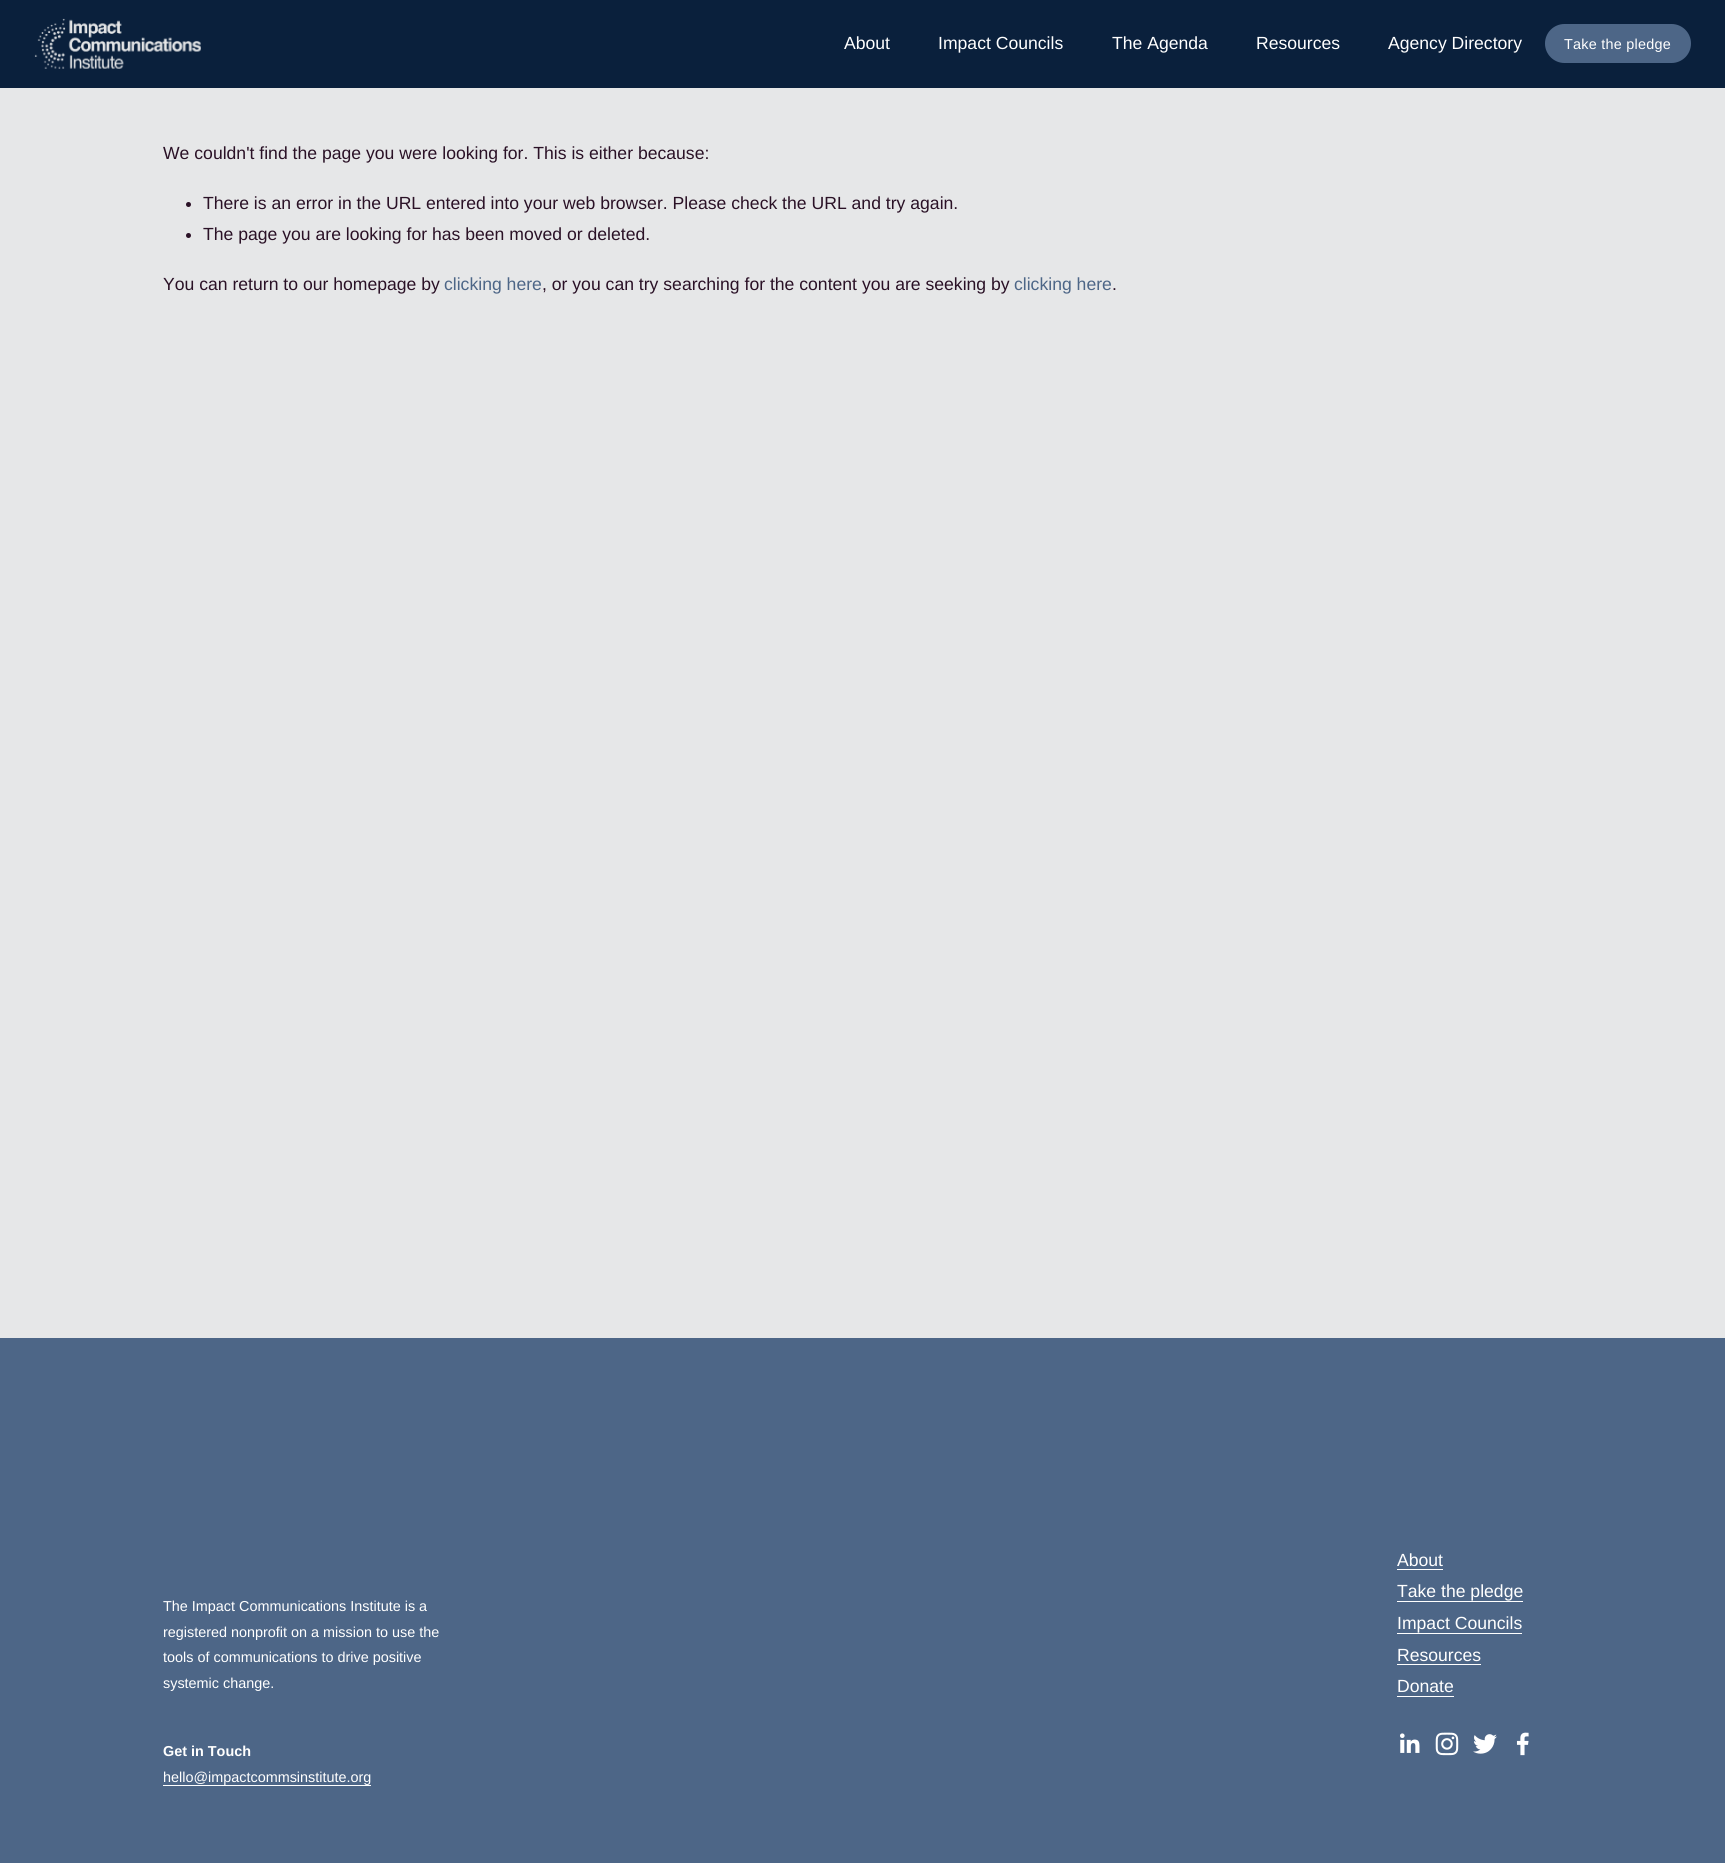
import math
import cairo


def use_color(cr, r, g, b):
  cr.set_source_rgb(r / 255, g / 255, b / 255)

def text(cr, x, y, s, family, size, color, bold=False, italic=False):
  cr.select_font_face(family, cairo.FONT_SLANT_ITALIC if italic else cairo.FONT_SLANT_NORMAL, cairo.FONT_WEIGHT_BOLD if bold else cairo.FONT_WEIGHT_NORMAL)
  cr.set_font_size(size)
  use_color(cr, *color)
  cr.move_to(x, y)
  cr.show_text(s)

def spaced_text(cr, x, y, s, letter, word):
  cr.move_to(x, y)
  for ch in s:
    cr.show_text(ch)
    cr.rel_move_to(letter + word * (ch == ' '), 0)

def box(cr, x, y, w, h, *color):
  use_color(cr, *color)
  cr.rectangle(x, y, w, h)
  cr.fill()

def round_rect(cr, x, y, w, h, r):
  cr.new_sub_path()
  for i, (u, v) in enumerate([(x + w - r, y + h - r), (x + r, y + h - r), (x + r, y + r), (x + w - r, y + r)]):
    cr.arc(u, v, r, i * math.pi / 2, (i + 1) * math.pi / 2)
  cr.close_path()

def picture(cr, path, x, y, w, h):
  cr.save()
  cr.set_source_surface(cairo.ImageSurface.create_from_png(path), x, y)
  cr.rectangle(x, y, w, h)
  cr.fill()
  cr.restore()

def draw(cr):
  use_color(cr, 230, 231, 232)
  cr.paint()
  box(cr, 0, 0, 1725, 88, 10, 32, 60)
  picture(cr, "img_01.png", 34, 18, 167, 51)
  use_color(cr, 77, 102, 135)
  round_rect(cr, 1545, 24, 146, 39, 19.5)
  cr.fill()
  use_color(cr, 42, 17, 38)
  cr.arc(188.5, 204.5, 2.5, 0, 2 * math.pi)
  cr.fill()
  cr.arc(188.5, 235.5, 2.5, 0, 2 * math.pi)
  cr.fill()
  box(cr, 0, 1338, 1725, 525, 77, 102, 135)
  box(cr, 163, 1785, 208, 1, 255, 255, 255)
  box(cr, 1397, 1569, 46, 1, 255, 255, 255)
  box(cr, 1397, 1601, 126, 1, 255, 255, 255)
  box(cr, 1397, 1633, 125, 1, 255, 255, 255)
  box(cr, 1397, 1664, 84, 1, 255, 255, 255)
  box(cr, 1397, 1696, 57, 1, 255, 255, 255)
  picture(cr, "img_02.png", 1400, 1733, 20, 20)
  picture(cr, "img_03.png", 1435, 1732, 24, 24)
  picture(cr, "img_04.png", 1473, 1734, 24, 20)
  picture(cr, "img_05.png", 1516, 1732, 13, 24)
  text(cr, 844, 49, "About", "Liberation Sans", 17.6, (255, 255, 255))
  text(cr, 938, 49, "Impact Councils", "Liberation Sans", 17.6, (255, 255, 255))
  text(cr, 1112, 49, "The Agenda", "Liberation Sans", 17.6, (255, 255, 255))
  text(cr, 1256, 49, "Resources", "Liberation Sans", 17.6, (255, 255, 255))
  text(cr, 1388, 49, "Agency Directory", "Liberation Sans", 17.6, (255, 255, 255))
  cr.set_font_size(14.4)
  spaced_text(cr, 1564, 49, "Take the pledge", 0.25, 0)
  text(cr, 163, 159, "We couldn't find the page you were looking for. This is either because:", "Liberation Sans", 17.6, (42, 17, 38))
  text(cr, 203, 209, "There is an error in the URL entered into your web browser. Please check the URL and try again.", "Liberation Sans", 17.6, (42, 17, 38))
  text(cr, 203, 240, "The page you are looking for has been moved or deleted.", "Liberation Sans", 17.6, (42, 17, 38))
  text(cr, 163, 290, "You can return to our homepage by", "Liberation Sans", 17.6, (42, 17, 38))
  text(cr, 444, 290, "clicking here", "Liberation Sans", 17.6, (77, 102, 135))
  text(cr, 542, 290, ", or you can try searching for the content you are seeking by", "Liberation Sans", 17.6, (42, 17, 38))
  text(cr, 1014, 290, "clicking here", "Liberation Sans", 17.6, (77, 102, 135))
  text(cr, 1112, 290, ".", "Liberation Sans", 17.6, (42, 17, 38))
  text(cr, 163, 1611, "The Impact Communications Institute is a", "Liberation Sans", 14.4, (255, 255, 255))
  text(cr, 163, 1637, "registered nonprofit on a mission to use the", "Liberation Sans", 14.4, (255, 255, 255))
  text(cr, 163, 1662, "tools of communications to drive positive", "Liberation Sans", 14.4, (255, 255, 255))
  text(cr, 163, 1688, "systemic change.", "Liberation Sans", 14.4, (255, 255, 255))
  text(cr, 163, 1756, "Get in Touch", "Liberation Sans", 14.4, (255, 255, 255), bold=True)
  text(cr, 163, 1782, "hello@impactcommsinstitute.org", "Liberation Sans", 14.4, (255, 255, 255))
  text(cr, 1397, 1566, "About", "Liberation Sans", 17.6, (255, 255, 255))
  text(cr, 1397, 1597, "Take the pledge", "Liberation Sans", 17.6, (255, 255, 255))
  text(cr, 1397, 1629, "Impact Councils", "Liberation Sans", 17.6, (255, 255, 255))
  text(cr, 1397, 1661, "Resources", "Liberation Sans", 17.6, (255, 255, 255))
  text(cr, 1397, 1692, "Donate", "Liberation Sans", 17.6, (255, 255, 255))


surface = cairo.ImageSurface(cairo.FORMAT_RGB24, 1725, 1863)
cr = cairo.Context(surface)
options = cairo.FontOptions()
options.set_hint_metrics(cairo.HINT_METRICS_OFF)
options.set_hint_style(cairo.HINT_STYLE_NONE)
cr.set_font_options(options)
cr.set_miter_limit(4)
draw(cr)
surface.write_to_png("out.png")
